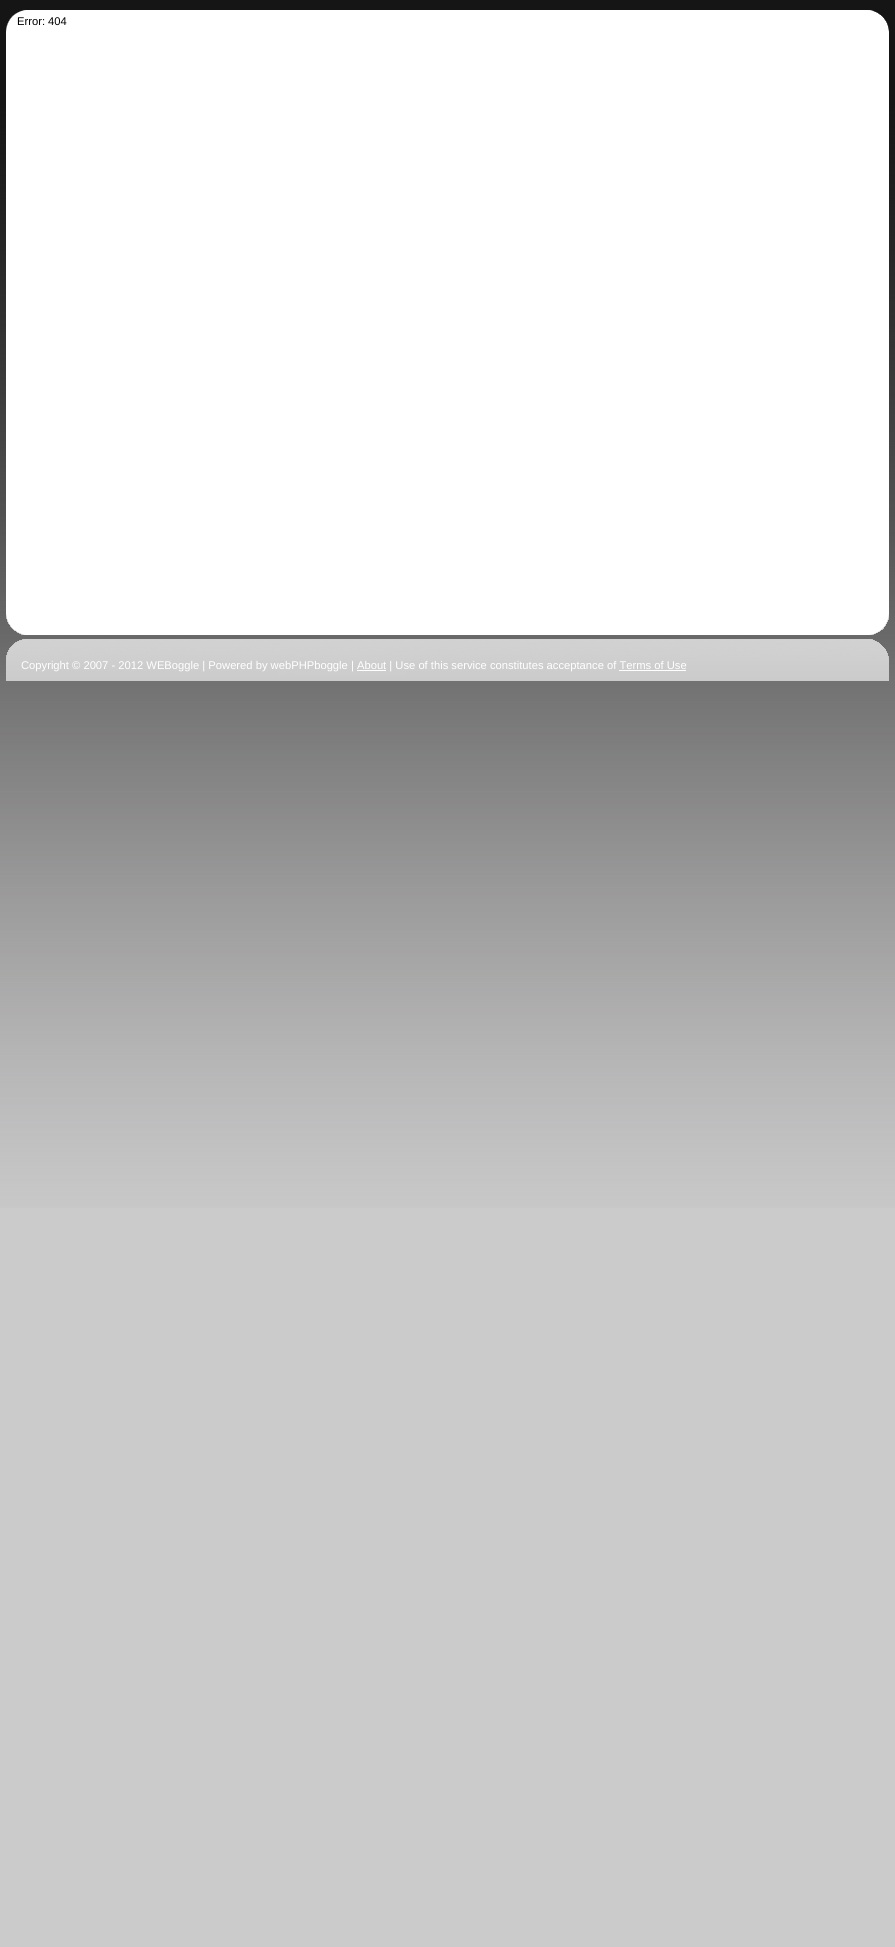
import math
import cairo


def use_color(cr, r, g, b):
  cr.set_source_rgb(r / 255, g / 255, b / 255)

def text(cr, x, y, s, family, size, color, bold=False, italic=False):
  cr.select_font_face(family, cairo.FONT_SLANT_ITALIC if italic else cairo.FONT_SLANT_NORMAL, cairo.FONT_WEIGHT_BOLD if bold else cairo.FONT_WEIGHT_NORMAL)
  cr.set_font_size(size)
  use_color(cr, *color)
  cr.move_to(x, y)
  cr.show_text(s)

def box(cr, x, y, w, h, *color):
  use_color(cr, *color)
  cr.rectangle(x, y, w, h)
  cr.fill()

def picture(cr, path, x, y, w, h):
  cr.save()
  cr.set_source_surface(cairo.ImageSurface.create_from_png(path), x, y)
  cr.rectangle(x, y, w, h)
  cr.fill()
  cr.restore()

def draw(cr):
  use_color(cr, 203, 203, 203)
  cr.paint()
  picture(cr, "img_01.png", 0, 0, 895, 1208)
  box(cr, 6, 32, 883, 582, 255, 255, 255)
  picture(cr, "img_02.png", 6, 10, 883, 22)
  picture(cr, "img_03.png", 6, 614, 883, 45)
  picture(cr, "img_04.png", 6, 659, 883, 22)
  box(cr, 357, 670, 29, 1, 255, 255, 255)
  box(cr, 619, 670, 67, 1, 255, 255, 255)
  text(cr, 17, 25, "Error: 404", "Liberation Sans", 11.2, (0, 0, 0))
  text(cr, 21, 669, "Copyright © 2007 - 2012 WEBoggle | Powered by webPHPboggle | About | Use of this service constitutes acceptance of Terms of Use", "Liberation Sans", 11.2, (255, 255, 255))


surface = cairo.ImageSurface(cairo.FORMAT_RGB24, 895, 1947)
cr = cairo.Context(surface)
options = cairo.FontOptions()
options.set_hint_metrics(cairo.HINT_METRICS_OFF)
options.set_hint_style(cairo.HINT_STYLE_NONE)
cr.set_font_options(options)
cr.set_miter_limit(4)
draw(cr)
surface.write_to_png("out.png")
